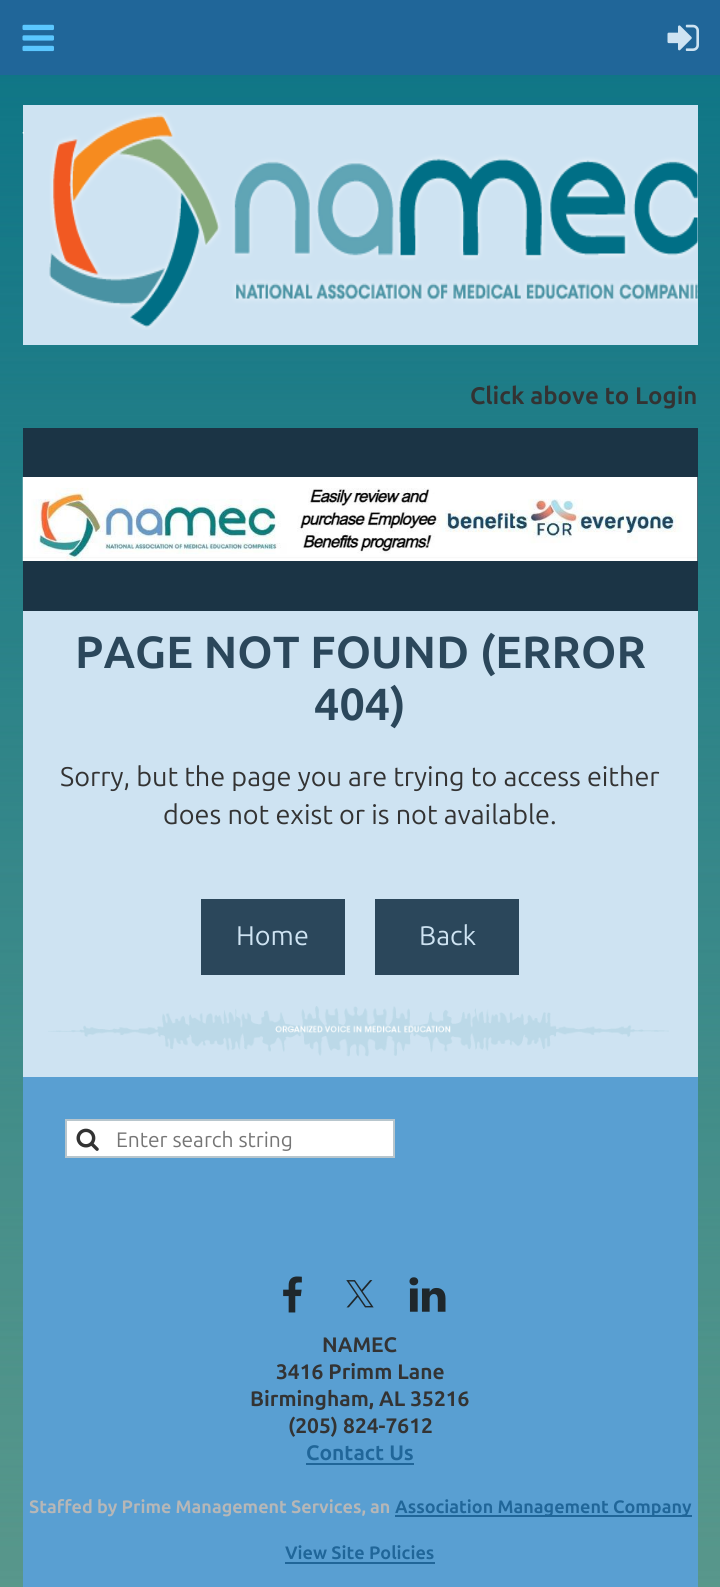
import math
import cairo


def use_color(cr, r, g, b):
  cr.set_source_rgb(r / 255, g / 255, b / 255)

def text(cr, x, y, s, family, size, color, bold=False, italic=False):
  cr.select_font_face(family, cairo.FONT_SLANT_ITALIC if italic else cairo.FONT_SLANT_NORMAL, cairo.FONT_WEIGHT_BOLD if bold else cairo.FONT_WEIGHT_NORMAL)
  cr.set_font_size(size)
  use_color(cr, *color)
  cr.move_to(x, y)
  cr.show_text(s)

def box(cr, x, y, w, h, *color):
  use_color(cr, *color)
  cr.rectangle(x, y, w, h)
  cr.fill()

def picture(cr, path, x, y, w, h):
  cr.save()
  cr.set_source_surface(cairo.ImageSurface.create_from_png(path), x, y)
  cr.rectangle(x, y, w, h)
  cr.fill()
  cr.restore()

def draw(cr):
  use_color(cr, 255, 255, 255)
  cr.paint()
  picture(cr, "img_01.png", 0, 75, 720, 1512)
  box(cr, 0, 0, 720, 75, 32, 102, 153)
  picture(cr, "img_02.png", 22, 24, 32, 28)
  picture(cr, "img_03.png", 667, 24, 32, 27)
  box(cr, 23, 105, 675, 240, 206, 227, 242)
  picture(cr, "img_04.png", 22, 132, 2, 2)
  picture(cr, "img_05.png", 49, 112, 649, 218)
  box(cr, 23, 428, 675, 183, 27, 52, 69)
  picture(cr, "img_06.png", 22, 477, 676, 84)
  box(cr, 23, 611, 675, 466, 206, 227, 242)
  box(cr, 201, 899, 144, 76, 43, 71, 91)
  box(cr, 375, 899, 144, 76, 43, 71, 91)
  picture(cr, "img_07.png", 48, 1006, 621, 51)
  box(cr, 23, 1077, 675, 510, 89, 159, 210)
  use_color(cr, 255, 255, 255)
  cr.rectangle(66, 1120, 328, 37)
  cr.fill_preserve()
  use_color(cr, 184, 198, 205)
  cr.stroke()
  picture(cr, "img_08.png", 76, 1128, 23, 23)
  picture(cr, "img_09.png", 283, 1276, 19, 37)
  picture(cr, "img_10.png", 346, 1280, 28, 28)
  picture(cr, "img_11.png", 409, 1277, 37, 35)
  box(cr, 306, 1463, 108, 2, 32, 102, 153)
  box(cr, 395, 1515, 297, 2, 32, 102, 153)
  box(cr, 285, 1562, 150, 2, 32, 102, 153)
  text(cr, 470, 404, "Click above to Login", "Ubuntu", 24, (51, 51, 51), bold=True)
  text(cr, 75, 668, "PAGE NOT FOUND (ERROR", "Ubuntu", 45, (43, 71, 91), bold=True)
  text(cr, 314, 720, "404)", "Ubuntu", 45, (43, 71, 91), bold=True)
  text(cr, 60, 786, "Sorry, but the page you are trying to access either", "Ubuntu", 27, (51, 51, 51))
  text(cr, 163, 824, "does not exist or is not available.", "Ubuntu", 27, (51, 51, 51))
  text(cr, 236, 945, "Home", "Ubuntu", 27, (206, 227, 242))
  text(cr, 419, 945, "Back", "Ubuntu", 27, (206, 227, 242))
  text(cr, 116, 1147, "Enter search string", "Ubuntu", 21, (117, 117, 117))
  text(cr, 322, 1352, "NAMEC", "Ubuntu", 21, (51, 51, 51), bold=True)
  text(cr, 276, 1379, "3416 Primm Lane", "Ubuntu", 21, (51, 51, 51), bold=True)
  text(cr, 250, 1406, "Birmingham, AL 35216", "Ubuntu", 21, (51, 51, 51), bold=True)
  text(cr, 288, 1433, "(205) 824-7612", "Ubuntu", 21, (51, 51, 51), bold=True)
  text(cr, 306, 1460, "Contact Us", "Ubuntu", 21, (32, 102, 153), bold=True)
  text(cr, 29, 1513, "Staffed by Prime Management Services, an", "Ubuntu", 18, (183, 183, 183), bold=True)
  text(cr, 395, 1513, "Association Management Company", "Ubuntu", 18, (32, 102, 153), bold=True)
  text(cr, 285, 1559, "View Site Policies", "Ubuntu", 18, (32, 102, 153), bold=True)


surface = cairo.ImageSurface(cairo.FORMAT_RGB24, 720, 1587)
cr = cairo.Context(surface)
options = cairo.FontOptions()
options.set_hint_metrics(cairo.HINT_METRICS_OFF)
options.set_hint_style(cairo.HINT_STYLE_NONE)
cr.set_font_options(options)
cr.set_miter_limit(4)
draw(cr)
surface.write_to_png("out.png")
